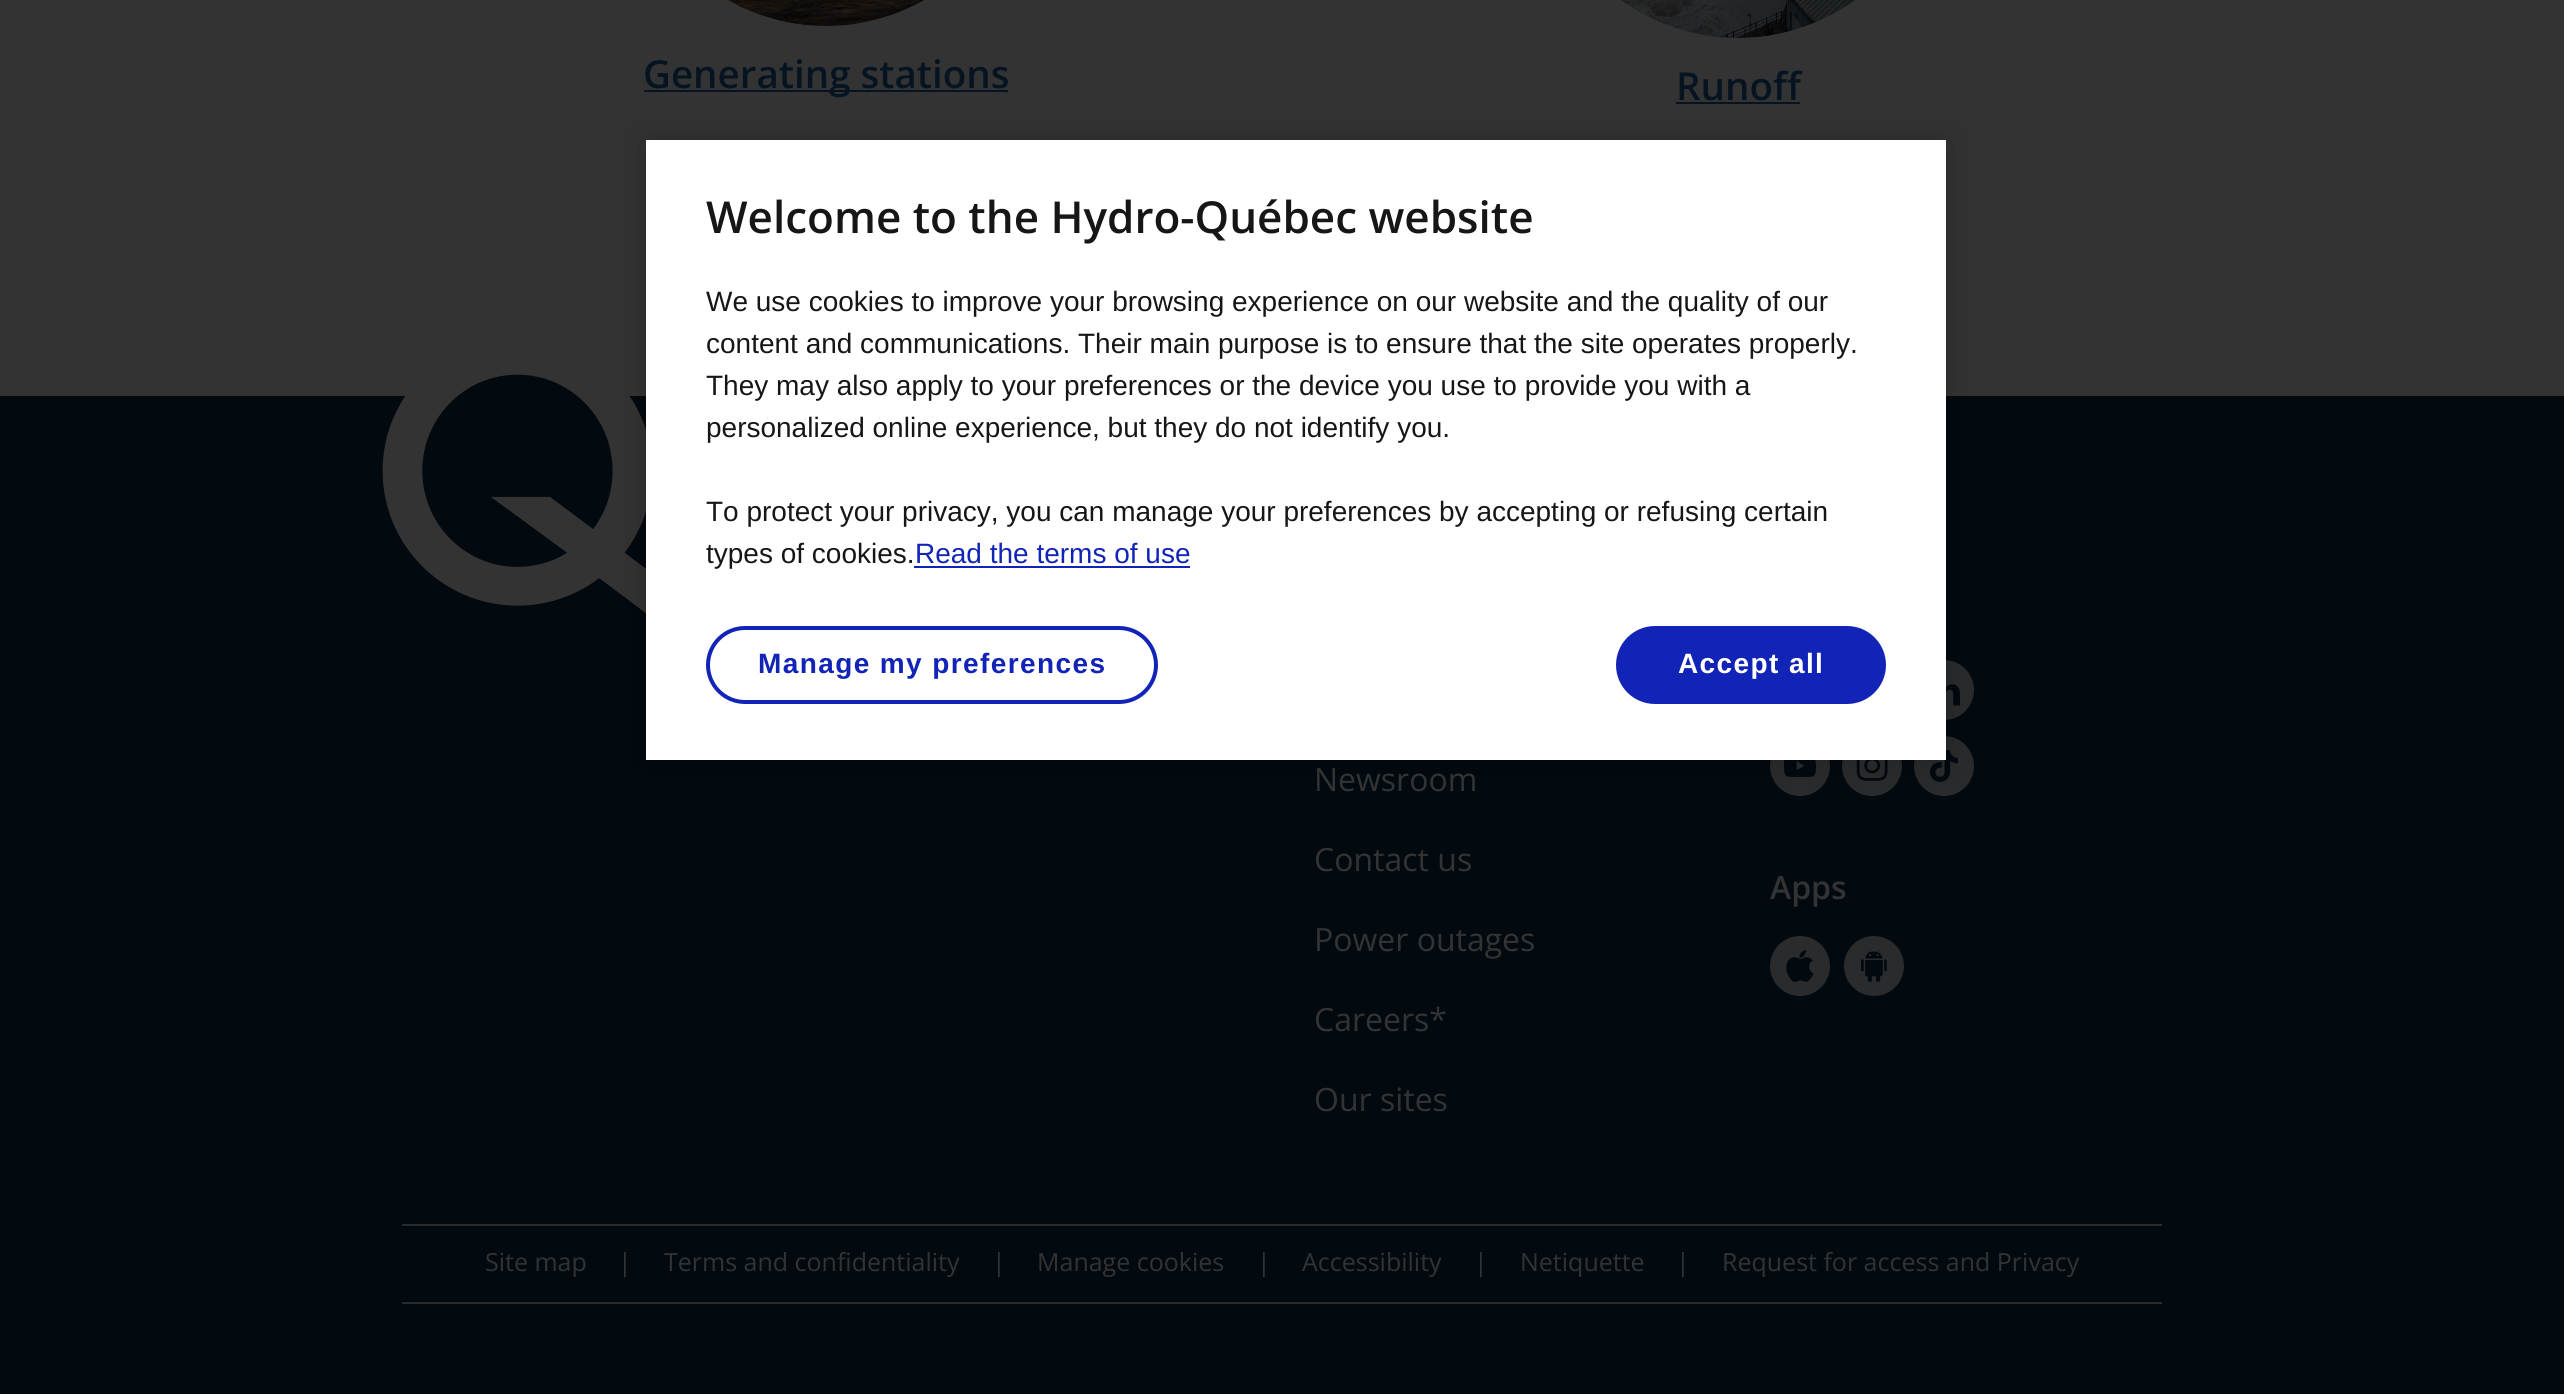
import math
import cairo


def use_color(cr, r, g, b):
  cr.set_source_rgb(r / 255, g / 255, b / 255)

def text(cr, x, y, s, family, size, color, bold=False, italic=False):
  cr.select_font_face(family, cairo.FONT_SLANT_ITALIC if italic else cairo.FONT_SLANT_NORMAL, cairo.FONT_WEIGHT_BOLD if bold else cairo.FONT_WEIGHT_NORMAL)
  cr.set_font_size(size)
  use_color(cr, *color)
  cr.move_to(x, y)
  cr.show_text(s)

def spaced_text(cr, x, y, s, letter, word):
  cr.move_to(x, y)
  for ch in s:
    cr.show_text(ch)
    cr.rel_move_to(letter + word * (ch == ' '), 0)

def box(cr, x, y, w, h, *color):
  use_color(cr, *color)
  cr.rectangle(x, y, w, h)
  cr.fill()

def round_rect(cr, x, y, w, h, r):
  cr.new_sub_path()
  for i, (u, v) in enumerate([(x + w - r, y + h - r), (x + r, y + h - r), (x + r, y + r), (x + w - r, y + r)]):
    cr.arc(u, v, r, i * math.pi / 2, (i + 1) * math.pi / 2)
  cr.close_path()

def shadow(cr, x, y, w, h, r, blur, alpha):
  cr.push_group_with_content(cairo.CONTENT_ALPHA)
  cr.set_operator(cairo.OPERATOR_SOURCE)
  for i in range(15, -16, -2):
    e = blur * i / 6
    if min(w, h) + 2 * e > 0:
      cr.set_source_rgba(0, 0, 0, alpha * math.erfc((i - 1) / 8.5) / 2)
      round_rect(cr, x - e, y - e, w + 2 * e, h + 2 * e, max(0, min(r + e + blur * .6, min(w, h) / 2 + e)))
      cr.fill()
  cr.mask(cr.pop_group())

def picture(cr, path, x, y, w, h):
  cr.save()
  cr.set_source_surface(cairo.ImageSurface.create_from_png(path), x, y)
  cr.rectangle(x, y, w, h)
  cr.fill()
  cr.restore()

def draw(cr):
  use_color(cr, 51, 51, 51)
  cr.paint()
  use_color(cr, 47, 46, 46)
  round_rect(cr, 626, -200, 400, 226, 200)
  cr.fill()
  picture(cr, "img_01.png", 728, 0, 196, 26)
  box(cr, 644, 90, 364, 2, 5, 20, 32)
  use_color(cr, 47, 46, 46)
  round_rect(cr, 1538, -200, 400, 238, 200)
  cr.fill()
  picture(cr, "img_02.png", 1621, 0, 234, 38)
  box(cr, 1676, 102, 124, 2, 5, 20, 32)
  box(cr, 0, 396, 2564, 998, 2, 9, 15)
  picture(cr, "img_03.png", 382, 374, 264, 240)
  use_color(cr, 41, 43, 44)
  cr.arc(1944, 690, 30, 0, 2 * math.pi)
  cr.fill()
  picture(cr, "img_04.png", 1946, 684, 14, 22)
  cr.arc(1800, 766, 30, 0, 2 * math.pi)
  cr.fill()
  picture(cr, "img_05.png", 1784, 760, 32, 17)
  cr.arc(1872, 766, 30, 0, 2 * math.pi)
  cr.fill()
  picture(cr, "img_06.png", 1856, 760, 32, 21)
  cr.arc(1944, 766, 30, 0, 2 * math.pi)
  cr.fill()
  picture(cr, "img_07.png", 1930, 750, 28, 32)
  cr.arc(1800, 966, 30, 0, 2 * math.pi)
  cr.fill()
  picture(cr, "img_08.png", 1786, 950, 28, 32)
  cr.arc(1874, 966, 30, 0, 2 * math.pi)
  cr.fill()
  picture(cr, "img_09.png", 1861, 950, 26, 32)
  box(cr, 402, 1224, 1760, 2, 41, 43, 44)
  box(cr, 402, 1302, 1760, 2, 41, 43, 44)
  use_color(cr, 0, 0, 0)
  shadow(cr, 646, 140, 1300, 620, 0, 18, 0.2)
  box(cr, 646, 140, 1300, 620, 255, 255, 255)
  box(cr, 914, 566, 276, 2, 18, 36, 184)
  round_rect(cr, 708, 628, 448, 74, 37)
  cr.set_line_width(4)
  cr.stroke()
  round_rect(cr, 1616, 626, 270, 78, 39)
  cr.fill()
  text(cr, 643, 88, "Generating stations", "Open Sans SemiBold", 38.5, (5, 20, 32))
  text(cr, 1676, 100, "Runoff", "Open Sans SemiBold", 38.5, (5, 20, 32))
  text(cr, 1314, 791, "Newsroom", "Open Sans", 32, (51, 51, 51))
  text(cr, 1314, 871, "Contact us", "Open Sans", 32, (51, 51, 51))
  text(cr, 1314, 951, "Power outages", "Open Sans", 32, (51, 51, 51))
  text(cr, 1314, 1031, "Careers*", "Open Sans", 32, (51, 51, 51))
  text(cr, 1314, 1111, "Our sites", "Open Sans", 32, (51, 51, 51))
  text(cr, 1770, 899, "Apps", "Open Sans SemiBold", 32, (51, 51, 51))
  text(cr, 485, 1271, "Site map", "Open Sans", 25, (51, 51, 51))
  text(cr, 618, 1271, "|", "Open Sans", 25, (51, 51, 51))
  text(cr, 664, 1271, "Terms and confidentiality", "Open Sans", 25, (51, 51, 51))
  text(cr, 992, 1271, "|", "Open Sans", 25, (51, 51, 51))
  text(cr, 1037, 1271, "Manage cookies", "Open Sans", 25, (51, 51, 51))
  text(cr, 1257, 1271, "|", "Open Sans", 25, (51, 51, 51))
  text(cr, 1302, 1271, "Accessibility", "Open Sans", 25, (51, 51, 51))
  text(cr, 1474, 1271, "|", "Open Sans", 25, (51, 51, 51))
  text(cr, 1520, 1271, "Netiquette", "Open Sans", 25, (51, 51, 51))
  text(cr, 1676, 1271, "|", "Open Sans", 25, (51, 51, 51))
  text(cr, 1722, 1271, "Request for access and Privacy", "Open Sans", 25, (51, 51, 51))
  text(cr, 706, 233, "Welcome to the Hydro-Québec website", "Open Sans SemiBold", 44, (22, 22, 22))
  text(cr, 706, 311, "We use cookies to improve your browsing experience on our website and the quality of our", "Liberation Sans", 28, (22, 22, 22))
  text(cr, 706, 353, "content and communications. Their main purpose is to ensure that the site operates properly.", "Liberation Sans", 28, (22, 22, 22))
  text(cr, 706, 395, "They may also apply to your preferences or the device you use to provide you with a", "Liberation Sans", 28, (22, 22, 22))
  text(cr, 706, 437, "personalized online experience, but they do not identify you.", "Liberation Sans", 28, (22, 22, 22))
  text(cr, 706, 521, "To protect your privacy, you can manage your preferences by accepting or refusing certain", "Liberation Sans", 28, (22, 22, 22))
  text(cr, 706, 563, "types of cookies.", "Liberation Sans", 28, (22, 22, 22))
  text(cr, 915, 563, "Read the terms of use", "Liberation Sans", 28, (18, 36, 184))
  cr.select_font_face("Liberation Sans", cairo.FONT_SLANT_NORMAL, cairo.FONT_WEIGHT_BOLD)
  spaced_text(cr, 758, 673, "Manage my preferences", 1.4, 0)
  use_color(cr, 255, 255, 255)
  spaced_text(cr, 1678, 673, "Accept all", 1.4, 0)


surface = cairo.ImageSurface(cairo.FORMAT_RGB24, 2564, 1394)
cr = cairo.Context(surface)
options = cairo.FontOptions()
options.set_hint_metrics(cairo.HINT_METRICS_OFF)
options.set_hint_style(cairo.HINT_STYLE_NONE)
cr.set_font_options(options)
cr.set_miter_limit(4)
draw(cr)
surface.write_to_png("out.png")
